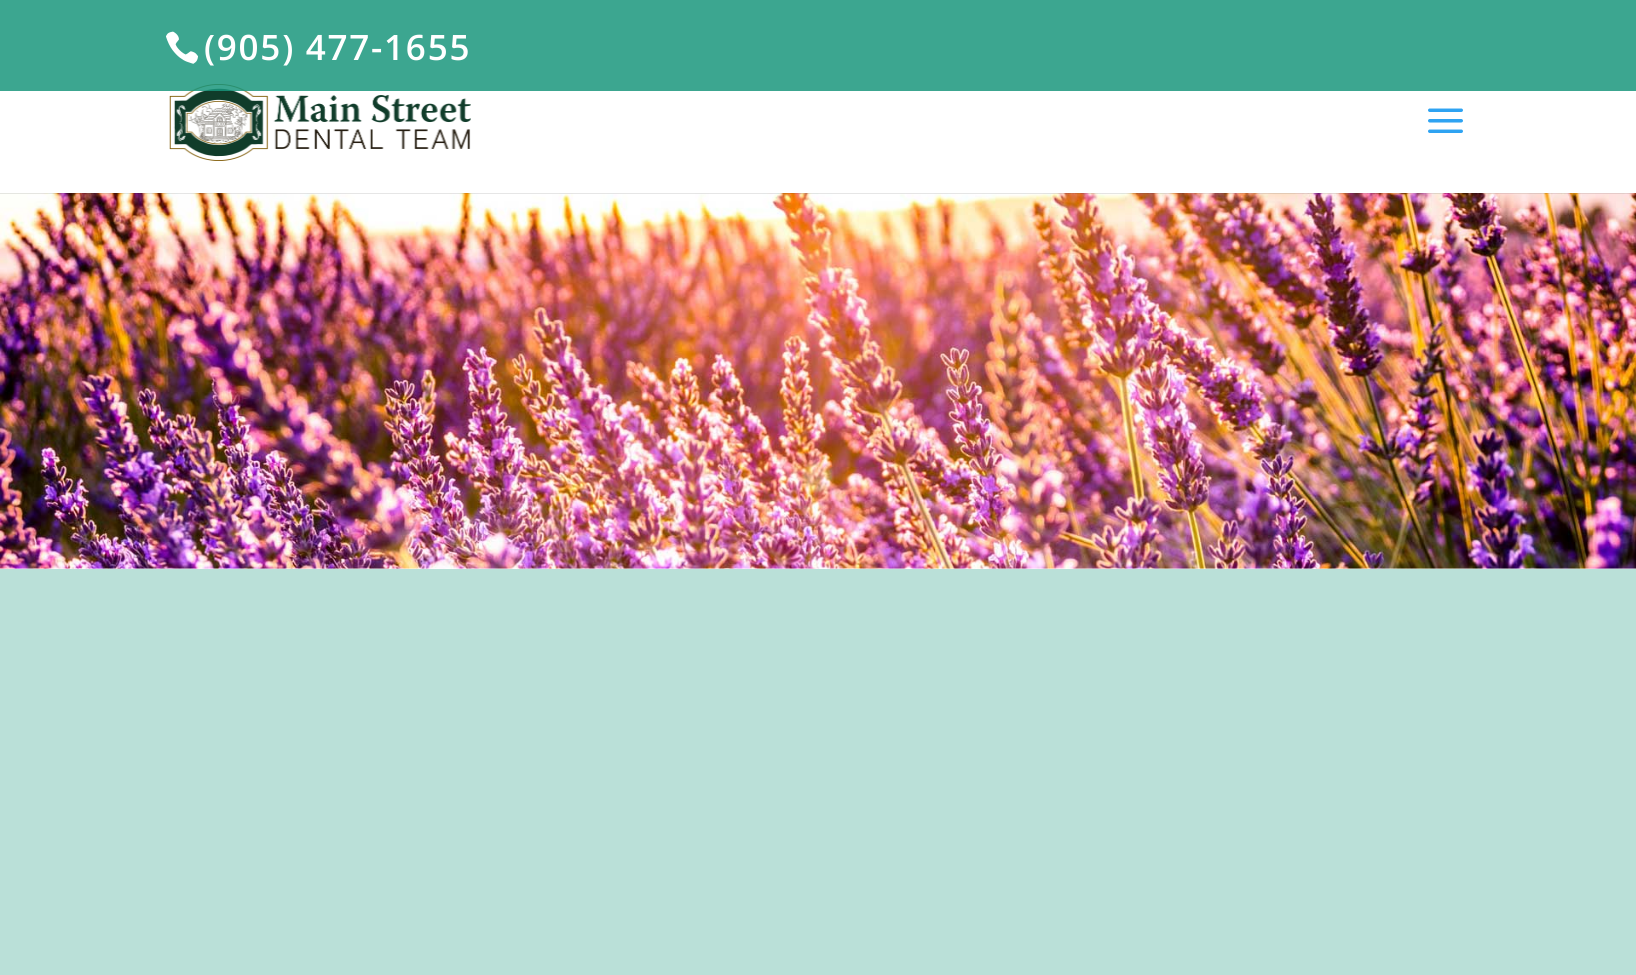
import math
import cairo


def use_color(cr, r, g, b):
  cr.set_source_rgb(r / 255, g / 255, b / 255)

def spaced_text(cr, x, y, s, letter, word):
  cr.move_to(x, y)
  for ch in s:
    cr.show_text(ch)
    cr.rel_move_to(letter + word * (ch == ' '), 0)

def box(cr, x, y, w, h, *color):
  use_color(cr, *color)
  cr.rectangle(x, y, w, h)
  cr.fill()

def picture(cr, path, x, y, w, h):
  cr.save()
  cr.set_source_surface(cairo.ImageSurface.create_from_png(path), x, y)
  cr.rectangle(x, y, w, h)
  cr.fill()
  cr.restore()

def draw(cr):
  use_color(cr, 255, 255, 255)
  cr.paint()
  picture(cr, "img_02.png", 169, 84, 302, 77)
  cr.set_source_rgba(0.094, 0.588, 0.486, 0.84)
  cr.rectangle(0, 0, 1636, 91)
  cr.fill()
  picture(cr, "img_01.png", 166, 31, 32, 33)
  picture(cr, "img_04.png", 0, 193, 1636, 376)
  cr.set_source_rgba(0, 0, 0, 0.1)
  cr.rectangle(0, 193, 1636, 1)
  cr.fill()
  picture(cr, "img_03.png", 1428, 108, 35, 25)
  box(cr, 0, 569, 1636, 406, 186, 224, 216)
  cr.select_font_face("Open Sans SemiBold")
  cr.set_font_size(35)
  use_color(cr, 255, 255, 255)
  spaced_text(cr, 204, 60, "(905) 477-1655", 1.75, 0)


surface = cairo.ImageSurface(cairo.FORMAT_RGB24, 1636, 975)
cr = cairo.Context(surface)
options = cairo.FontOptions()
options.set_hint_metrics(cairo.HINT_METRICS_OFF)
options.set_hint_style(cairo.HINT_STYLE_NONE)
cr.set_font_options(options)
cr.set_miter_limit(4)
draw(cr)
surface.write_to_png("out.png")
